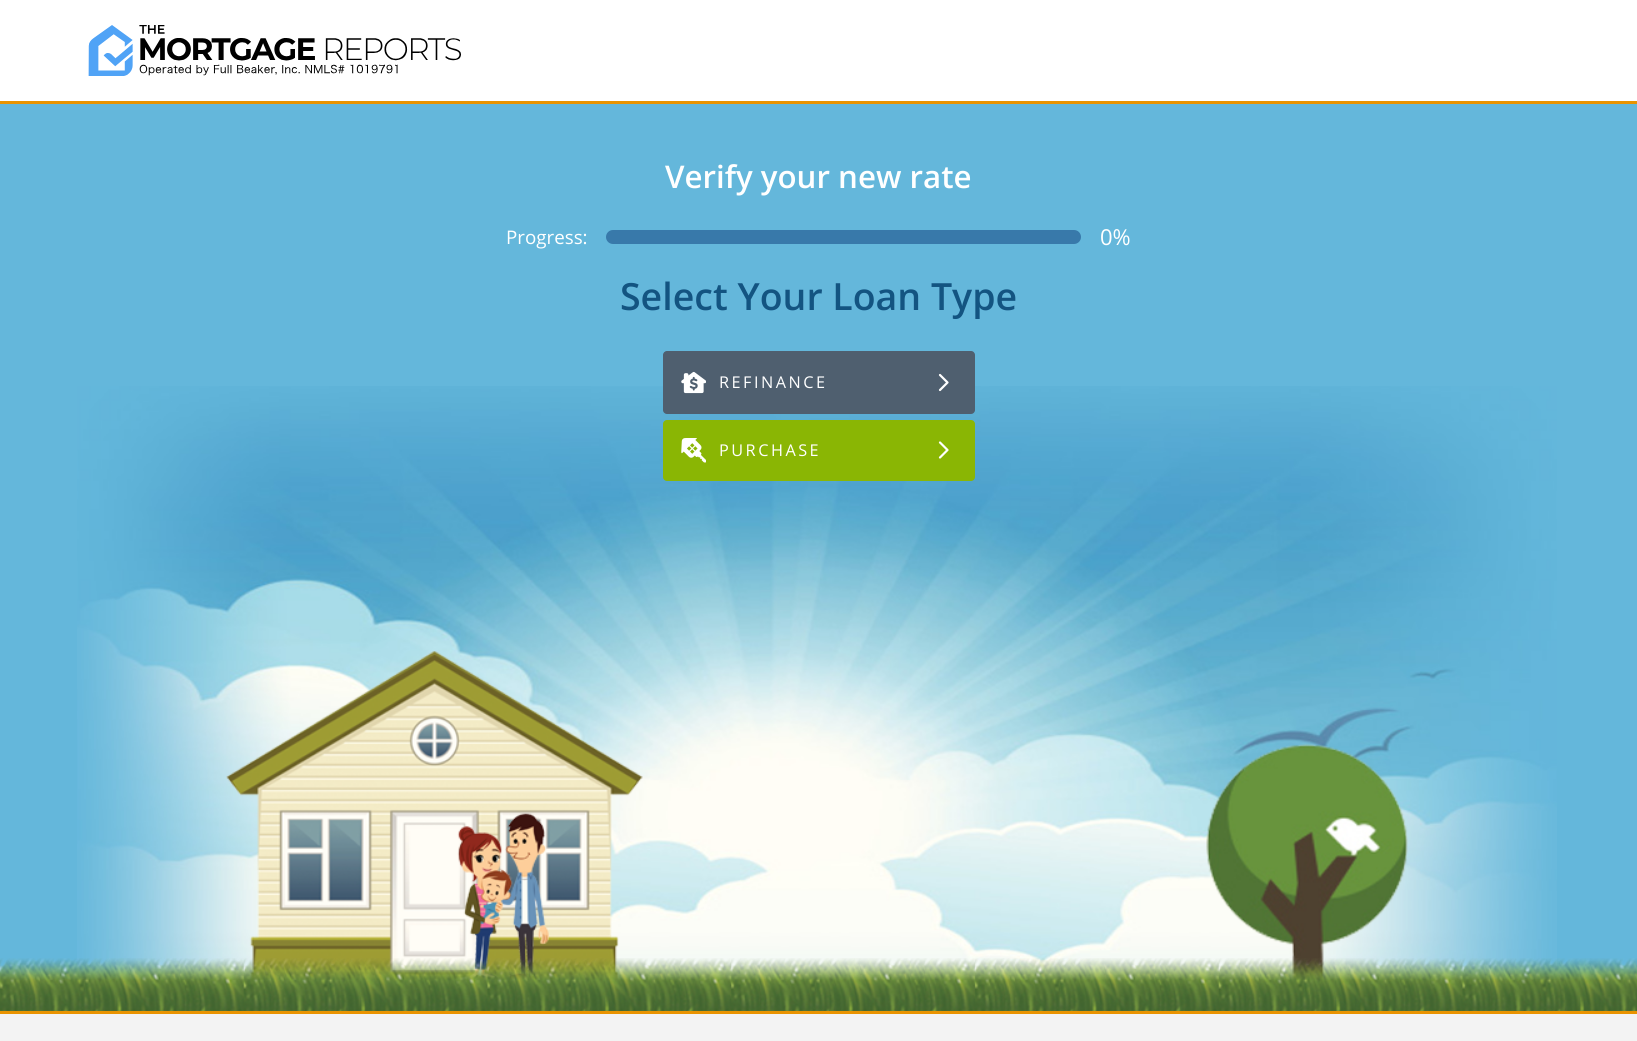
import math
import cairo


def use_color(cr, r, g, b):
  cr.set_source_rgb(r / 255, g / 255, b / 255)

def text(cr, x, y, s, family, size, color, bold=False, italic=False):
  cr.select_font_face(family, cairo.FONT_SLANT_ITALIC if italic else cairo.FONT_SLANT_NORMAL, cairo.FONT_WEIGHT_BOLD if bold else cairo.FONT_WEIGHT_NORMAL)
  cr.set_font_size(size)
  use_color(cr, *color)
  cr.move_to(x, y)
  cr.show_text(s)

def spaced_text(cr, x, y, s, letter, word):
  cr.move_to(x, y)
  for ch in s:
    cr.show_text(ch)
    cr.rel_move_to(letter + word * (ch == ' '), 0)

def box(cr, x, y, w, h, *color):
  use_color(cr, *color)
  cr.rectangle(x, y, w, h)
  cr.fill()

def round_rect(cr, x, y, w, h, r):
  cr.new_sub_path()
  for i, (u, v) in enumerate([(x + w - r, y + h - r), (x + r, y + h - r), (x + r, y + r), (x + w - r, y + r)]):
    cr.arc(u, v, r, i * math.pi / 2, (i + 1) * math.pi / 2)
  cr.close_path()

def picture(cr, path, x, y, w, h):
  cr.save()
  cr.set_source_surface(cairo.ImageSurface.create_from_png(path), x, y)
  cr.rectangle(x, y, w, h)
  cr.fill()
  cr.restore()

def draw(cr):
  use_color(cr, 255, 255, 255)
  cr.paint()
  picture(cr, "img_01.png", 88, 25, 373, 51)
  box(cr, 0, 104, 1637, 877, 100, 183, 219)
  picture(cr, "img_02.png", 77, 386, 1480, 595)
  picture(cr, "img_03.png", 226, 651, 1182, 330)
  picture(cr, "img_04.png", 0, 958, 1637, 53)
  box(cr, 0, 101, 1637, 3, 233, 147, 0)
  box(cr, 0, 1011, 1637, 3, 233, 147, 0)
  use_color(cr, 56, 121, 170)
  round_rect(cr, 606, 230, 475, 14, 7)
  cr.fill()
  use_color(cr, 79, 95, 111)
  round_rect(cr, 663, 351, 312, 63, 4)
  cr.fill()
  picture(cr, "img_05.png", 681, 371, 25, 23)
  cr.new_path()
  cr.move_to(940, 375)
  cr.line_to(947.5, 382.5)
  cr.line_to(940, 390)
  use_color(cr, 255, 255, 255)
  cr.set_line_width(2.2)
  cr.set_line_cap(cairo.LINE_CAP_ROUND)
  cr.set_line_join(cairo.LINE_JOIN_ROUND)
  cr.stroke()
  use_color(cr, 138, 182, 4)
  round_rect(cr, 663, 420, 312, 61, 4)
  cr.fill()
  picture(cr, "img_06.png", 681, 438, 25, 25)
  cr.new_path()
  cr.move_to(940, 442.5)
  cr.line_to(947.5, 450)
  cr.line_to(940, 457.5)
  use_color(cr, 255, 255, 255)
  cr.stroke()
  box(cr, 0, 1014, 1637, 27, 243, 243, 243)
  text(cr, 665, 188, "Verify your new rate", "Open Sans SemiBold", 31.25, (255, 255, 255))
  text(cr, 506, 244, "Progress:", "Open Sans", 18.75, (255, 255, 255))
  text(cr, 1100, 245, "0%", "Open Sans", 22, (255, 255, 255))
  text(cr, 620, 310, "Select Your Loan Type", "Open Sans SemiBold", 37.5, (19, 84, 129))
  cr.select_font_face("Open Sans")
  cr.set_font_size(16.25)
  use_color(cr, 255, 255, 255)
  spaced_text(cr, 719, 388, "REFINANCE", 2.5, 0)
  spaced_text(cr, 719, 456, "PURCHASE", 2.5, 0)


surface = cairo.ImageSurface(cairo.FORMAT_RGB24, 1637, 1041)
cr = cairo.Context(surface)
options = cairo.FontOptions()
options.set_hint_metrics(cairo.HINT_METRICS_OFF)
options.set_hint_style(cairo.HINT_STYLE_NONE)
cr.set_font_options(options)
cr.set_miter_limit(4)
draw(cr)
surface.write_to_png("out.png")
